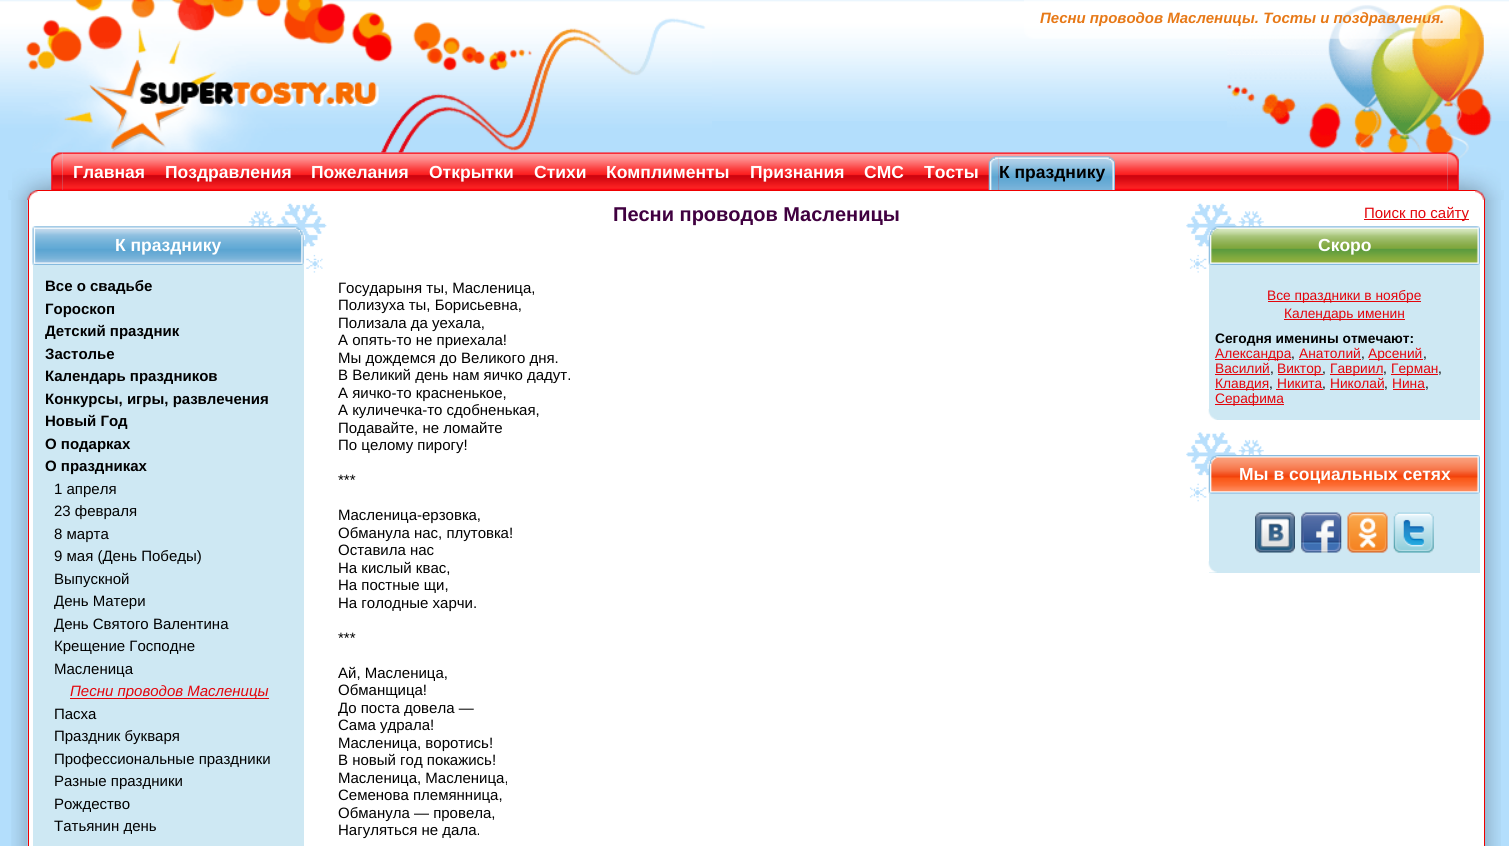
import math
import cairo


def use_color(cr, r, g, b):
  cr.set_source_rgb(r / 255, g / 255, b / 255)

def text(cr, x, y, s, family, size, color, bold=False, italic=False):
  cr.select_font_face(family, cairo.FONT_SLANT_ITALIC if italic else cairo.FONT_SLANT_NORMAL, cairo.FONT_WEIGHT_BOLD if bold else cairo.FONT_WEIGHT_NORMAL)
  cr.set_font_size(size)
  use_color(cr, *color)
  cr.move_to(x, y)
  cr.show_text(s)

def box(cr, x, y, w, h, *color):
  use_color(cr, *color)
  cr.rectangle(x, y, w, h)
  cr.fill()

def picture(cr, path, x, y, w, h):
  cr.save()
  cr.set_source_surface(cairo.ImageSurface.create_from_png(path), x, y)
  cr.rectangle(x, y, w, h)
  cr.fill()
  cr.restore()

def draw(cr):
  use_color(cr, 179, 222, 252)
  cr.paint()
  picture(cr, "img_01.png", 712, 0, 797, 121)
  picture(cr, "img_02.png", 0, 0, 712, 153)
  picture(cr, "img_03.png", 1227, 4, 265, 178)
  picture(cr, "img_04.png", 1024, 0, 436, 39)
  picture(cr, "img_11.png", 62, 171, 1386, 19)
  picture(cr, "img_05.png", 62, 152, 1386, 38)
  picture(cr, "img_12.png", 12, 168, 40, 22)
  picture(cr, "img_06.png", 51, 152, 12, 38)
  picture(cr, "img_07.png", 988, 156, 11, 34)
  picture(cr, "img_08.png", 1105, 156, 10, 34)
  picture(cr, "img_09.png", 998, 156, 107, 34)
  picture(cr, "img_13.png", 1458, 165, 43, 25)
  picture(cr, "img_10.png", 1447, 152, 12, 38)
  use_color(cr, 255, 255, 255)
  cr.rectangle(28.5, 190.5, 1456, 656)
  cr.fill_preserve()
  use_color(cr, 239, 0, 0)
  cr.set_line_width(1)
  cr.stroke()
  picture(cr, "img_14.png", 8, 190, 30, 10)
  picture(cr, "img_15.png", 1475, 190, 29, 10)
  picture(cr, "img_16.png", 11, 200, 17, 646)
  picture(cr, "img_17.png", 248, 203, 79, 70)
  picture(cr, "img_18.png", 32, 226, 272, 39)
  box(cr, 33, 265, 271, 581, 206, 232, 243)
  box(cr, 70, 698, 199, 1, 227, 5, 11)
  box(cr, 1364, 219, 105, 1, 227, 5, 11)
  picture(cr, "img_19.png", 1186, 203, 78, 70)
  picture(cr, "img_20.png", 1208, 226, 272, 39)
  box(cr, 1209, 265, 271, 155, 206, 232, 243)
  picture(cr, "img_21.png", 1208, 409, 9, 11)
  box(cr, 1268, 301, 153, 1, 227, 5, 11)
  box(cr, 1284, 319, 121, 1, 227, 5, 11)
  box(cr, 1215, 359, 76, 1, 227, 5, 11)
  box(cr, 1299, 359, 62, 1, 227, 5, 11)
  box(cr, 1369, 359, 54, 1, 227, 5, 11)
  box(cr, 1215, 374, 55, 1, 227, 5, 11)
  box(cr, 1278, 374, 45, 1, 227, 5, 11)
  box(cr, 1330, 374, 53, 1, 227, 5, 11)
  box(cr, 1391, 374, 47, 1, 227, 5, 11)
  box(cr, 1215, 389, 54, 1, 227, 5, 11)
  box(cr, 1276, 389, 47, 1, 227, 5, 11)
  box(cr, 1330, 389, 54, 1, 227, 5, 11)
  box(cr, 1393, 389, 32, 1, 227, 5, 11)
  box(cr, 1215, 404, 69, 1, 227, 5, 11)
  picture(cr, "img_22.png", 1186, 432, 78, 70)
  picture(cr, "img_23.png", 1208, 455, 272, 39)
  box(cr, 1209, 494, 271, 79, 206, 232, 243)
  picture(cr, "img_24.png", 1208, 561, 9, 12)
  picture(cr, "img_25.png", 1255, 512, 40, 41)
  picture(cr, "img_26.png", 1301, 512, 41, 41)
  picture(cr, "img_27.png", 1347, 512, 41, 41)
  picture(cr, "img_28.png", 1393, 512, 41, 41)
  picture(cr, "img_29.png", 1485, 200, 16, 646)
  text(cr, 1040, 23, "Песни проводов Масленицы. Тосты и поздравления.", "Liberation Sans", 15, (231, 121, 23), bold=True, italic=True)
  text(cr, 73, 178, "Главная", "Liberation Sans", 17.5, (255, 255, 255), bold=True)
  text(cr, 165, 178, "Поздравления", "Liberation Sans", 17.5, (255, 255, 255), bold=True)
  text(cr, 311, 178, "Пожелания", "Liberation Sans", 17.5, (255, 255, 255), bold=True)
  text(cr, 429, 178, "Открытки", "Liberation Sans", 17.5, (255, 255, 255), bold=True)
  text(cr, 534, 178, "Стихи", "Liberation Sans", 17.5, (255, 255, 255), bold=True)
  text(cr, 606, 178, "Комплименты", "Liberation Sans", 17.5, (255, 255, 255), bold=True)
  text(cr, 750, 178, "Признания", "Liberation Sans", 17.5, (255, 255, 255), bold=True)
  text(cr, 864, 178, "СМС", "Liberation Sans", 17.5, (255, 255, 255), bold=True)
  text(cr, 924, 178, "Тосты", "Liberation Sans", 17.5, (255, 255, 255), bold=True)
  text(cr, 999, 178, "К празднику", "Liberation Sans", 17.5, (0, 0, 0), bold=True)
  text(cr, 115, 251, "К празднику", "Liberation Sans", 17.5, (255, 255, 255), bold=True)
  text(cr, 45, 291, "Все о свадьбе", "Liberation Sans", 15, (0, 0, 0), bold=True)
  text(cr, 45, 314, "Гороскоп", "Liberation Sans", 15, (0, 0, 0), bold=True)
  text(cr, 45, 336, "Детский праздник", "Liberation Sans", 15, (0, 0, 0), bold=True)
  text(cr, 45, 359, "Застолье", "Liberation Sans", 15, (0, 0, 0), bold=True)
  text(cr, 45, 381, "Календарь праздников", "Liberation Sans", 15, (0, 0, 0), bold=True)
  text(cr, 45, 404, "Конкурсы, игры, развлечения", "Liberation Sans", 15, (0, 0, 0), bold=True)
  text(cr, 45, 426, "Новый Год", "Liberation Sans", 15, (0, 0, 0), bold=True)
  text(cr, 45, 449, "О подарках", "Liberation Sans", 15, (0, 0, 0), bold=True)
  text(cr, 45, 471, "О праздниках", "Liberation Sans", 15, (0, 0, 0), bold=True)
  text(cr, 54, 494, "1 апреля", "Liberation Sans", 15, (0, 0, 0))
  text(cr, 54, 516, "23 февраля", "Liberation Sans", 15, (0, 0, 0))
  text(cr, 54, 539, "8 марта", "Liberation Sans", 15, (0, 0, 0))
  text(cr, 54, 561, "9 мая (День Победы)", "Liberation Sans", 15, (0, 0, 0))
  text(cr, 54, 584, "Выпускной", "Liberation Sans", 15, (0, 0, 0))
  text(cr, 54, 606, "День Матери", "Liberation Sans", 15, (0, 0, 0))
  text(cr, 54, 629, "День Святого Валентина", "Liberation Sans", 15, (0, 0, 0))
  text(cr, 54, 651, "Крещение Господне", "Liberation Sans", 15, (0, 0, 0))
  text(cr, 54, 674, "Масленица", "Liberation Sans", 15, (0, 0, 0))
  text(cr, 70, 696, "Песни проводов Масленицы", "Liberation Sans", 15, (227, 5, 11), italic=True)
  text(cr, 54, 719, "Пасха", "Liberation Sans", 15, (0, 0, 0))
  text(cr, 54, 741, "Праздник букваря", "Liberation Sans", 15, (0, 0, 0))
  text(cr, 54, 764, "Профессиональные праздники", "Liberation Sans", 15, (0, 0, 0))
  text(cr, 54, 786, "Разные праздники", "Liberation Sans", 15, (0, 0, 0))
  text(cr, 54, 809, "Рождество", "Liberation Sans", 15, (0, 0, 0))
  text(cr, 54, 831, "Татьянин день", "Liberation Sans", 15, (0, 0, 0))
  text(cr, 613, 221, "Песни проводов Масленицы", "Liberation Sans", 20, (64, 0, 64), bold=True)
  text(cr, 338, 293, "Государыня ты, Масленица,", "Liberation Sans", 15, (0, 0, 0))
  text(cr, 338, 310, "Полизуха ты, Борисьевна,", "Liberation Sans", 15, (0, 0, 0))
  text(cr, 338, 328, "Полизала да уехала,", "Liberation Sans", 15, (0, 0, 0))
  text(cr, 338, 345, "А опять-то не приехала!", "Liberation Sans", 15, (0, 0, 0))
  text(cr, 338, 363, "Мы дождемся до Великого дня.", "Liberation Sans", 15, (0, 0, 0))
  text(cr, 338, 380, "В Великий день нам яичко дадут.", "Liberation Sans", 15, (0, 0, 0))
  text(cr, 338, 398, "А яичко-то красненькое,", "Liberation Sans", 15, (0, 0, 0))
  text(cr, 338, 415, "А куличечка-то сдобненькая,", "Liberation Sans", 15, (0, 0, 0))
  text(cr, 338, 433, "Подавайте, не ломайте", "Liberation Sans", 15, (0, 0, 0))
  text(cr, 338, 450, "По целому пирогу!", "Liberation Sans", 15, (0, 0, 0))
  text(cr, 338, 485, "***", "Liberation Sans", 15, (0, 0, 0))
  text(cr, 338, 520, "Масленица-ерзовка,", "Liberation Sans", 15, (0, 0, 0))
  text(cr, 338, 538, "Обманула нас, плутовка!", "Liberation Sans", 15, (0, 0, 0))
  text(cr, 338, 555, "Оставила нас", "Liberation Sans", 15, (0, 0, 0))
  text(cr, 338, 573, "На кислый квас,", "Liberation Sans", 15, (0, 0, 0))
  text(cr, 338, 590, "На постные щи,", "Liberation Sans", 15, (0, 0, 0))
  text(cr, 338, 608, "На голодные харчи.", "Liberation Sans", 15, (0, 0, 0))
  text(cr, 338, 643, "***", "Liberation Sans", 15, (0, 0, 0))
  text(cr, 338, 678, "Ай, Масленица,", "Liberation Sans", 15, (0, 0, 0))
  text(cr, 338, 695, "Обманщица!", "Liberation Sans", 15, (0, 0, 0))
  text(cr, 338, 713, "До поста довела —", "Liberation Sans", 15, (0, 0, 0))
  text(cr, 338, 730, "Сама удрала!", "Liberation Sans", 15, (0, 0, 0))
  text(cr, 338, 748, "Масленица, воротись!", "Liberation Sans", 15, (0, 0, 0))
  text(cr, 338, 765, "В новый год покажись!", "Liberation Sans", 15, (0, 0, 0))
  text(cr, 338, 783, "Масленица, Масленица,", "Liberation Sans", 15, (0, 0, 0))
  text(cr, 338, 800, "Семенова племянница,", "Liberation Sans", 15, (0, 0, 0))
  text(cr, 338, 818, "Обманула — провела,", "Liberation Sans", 15, (0, 0, 0))
  text(cr, 338, 835, "Нагуляться не дала.", "Liberation Sans", 15, (0, 0, 0))
  text(cr, 1364, 218, "Поиск по сайту", "Liberation Sans", 15, (227, 5, 11))
  text(cr, 1318, 251, "Скоро", "Liberation Sans", 17.5, (255, 255, 255), bold=True)
  text(cr, 1267, 300, "Все праздники в ноябре", "Liberation Sans", 13.75, (227, 5, 11))
  text(cr, 1284, 318, "Календарь именин", "Liberation Sans", 13.75, (227, 5, 11))
  text(cr, 1215, 343, "Сегодня именины отмечают:", "Liberation Sans", 13.75, (0, 0, 0), bold=True)
  text(cr, 1215, 358, "Александра", "Liberation Sans", 13.75, (227, 5, 11))
  text(cr, 1291, 358, ",", "Liberation Sans", 13.75, (0, 0, 0))
  text(cr, 1299, 358, "Анатолий", "Liberation Sans", 13.75, (227, 5, 11))
  text(cr, 1361, 358, ",", "Liberation Sans", 13.75, (0, 0, 0))
  text(cr, 1368, 358, "Арсений", "Liberation Sans", 13.75, (227, 5, 11))
  text(cr, 1423, 358, ",", "Liberation Sans", 13.75, (0, 0, 0))
  text(cr, 1215, 373, "Василий", "Liberation Sans", 13.75, (227, 5, 11))
  text(cr, 1270, 373, ",", "Liberation Sans", 13.75, (0, 0, 0))
  text(cr, 1277, 373, "Виктор", "Liberation Sans", 13.75, (227, 5, 11))
  text(cr, 1322, 373, ",", "Liberation Sans", 13.75, (0, 0, 0))
  text(cr, 1330, 373, "Гавриил", "Liberation Sans", 13.75, (227, 5, 11))
  text(cr, 1383, 373, ",", "Liberation Sans", 13.75, (0, 0, 0))
  text(cr, 1391, 373, "Герман", "Liberation Sans", 13.75, (227, 5, 11))
  text(cr, 1438, 373, ",", "Liberation Sans", 13.75, (0, 0, 0))
  text(cr, 1215, 388, "Клавдия", "Liberation Sans", 13.75, (227, 5, 11))
  text(cr, 1269, 388, ",", "Liberation Sans", 13.75, (0, 0, 0))
  text(cr, 1277, 388, "Никита", "Liberation Sans", 13.75, (227, 5, 11))
  text(cr, 1322, 388, ",", "Liberation Sans", 13.75, (0, 0, 0))
  text(cr, 1330, 388, "Николай", "Liberation Sans", 13.75, (227, 5, 11))
  text(cr, 1384, 388, ",", "Liberation Sans", 13.75, (0, 0, 0))
  text(cr, 1392, 388, "Нина", "Liberation Sans", 13.75, (227, 5, 11))
  text(cr, 1425, 388, ",", "Liberation Sans", 13.75, (0, 0, 0))
  text(cr, 1215, 403, "Серафима", "Liberation Sans", 13.75, (227, 5, 11))
  text(cr, 1239, 480, "Мы в социальных сетях", "Liberation Sans", 17.5, (255, 255, 255), bold=True)


surface = cairo.ImageSurface(cairo.FORMAT_RGB24, 1509, 846)
cr = cairo.Context(surface)
options = cairo.FontOptions()
options.set_hint_metrics(cairo.HINT_METRICS_OFF)
options.set_hint_style(cairo.HINT_STYLE_NONE)
cr.set_font_options(options)
cr.set_miter_limit(4)
draw(cr)
surface.write_to_png("out.png")
